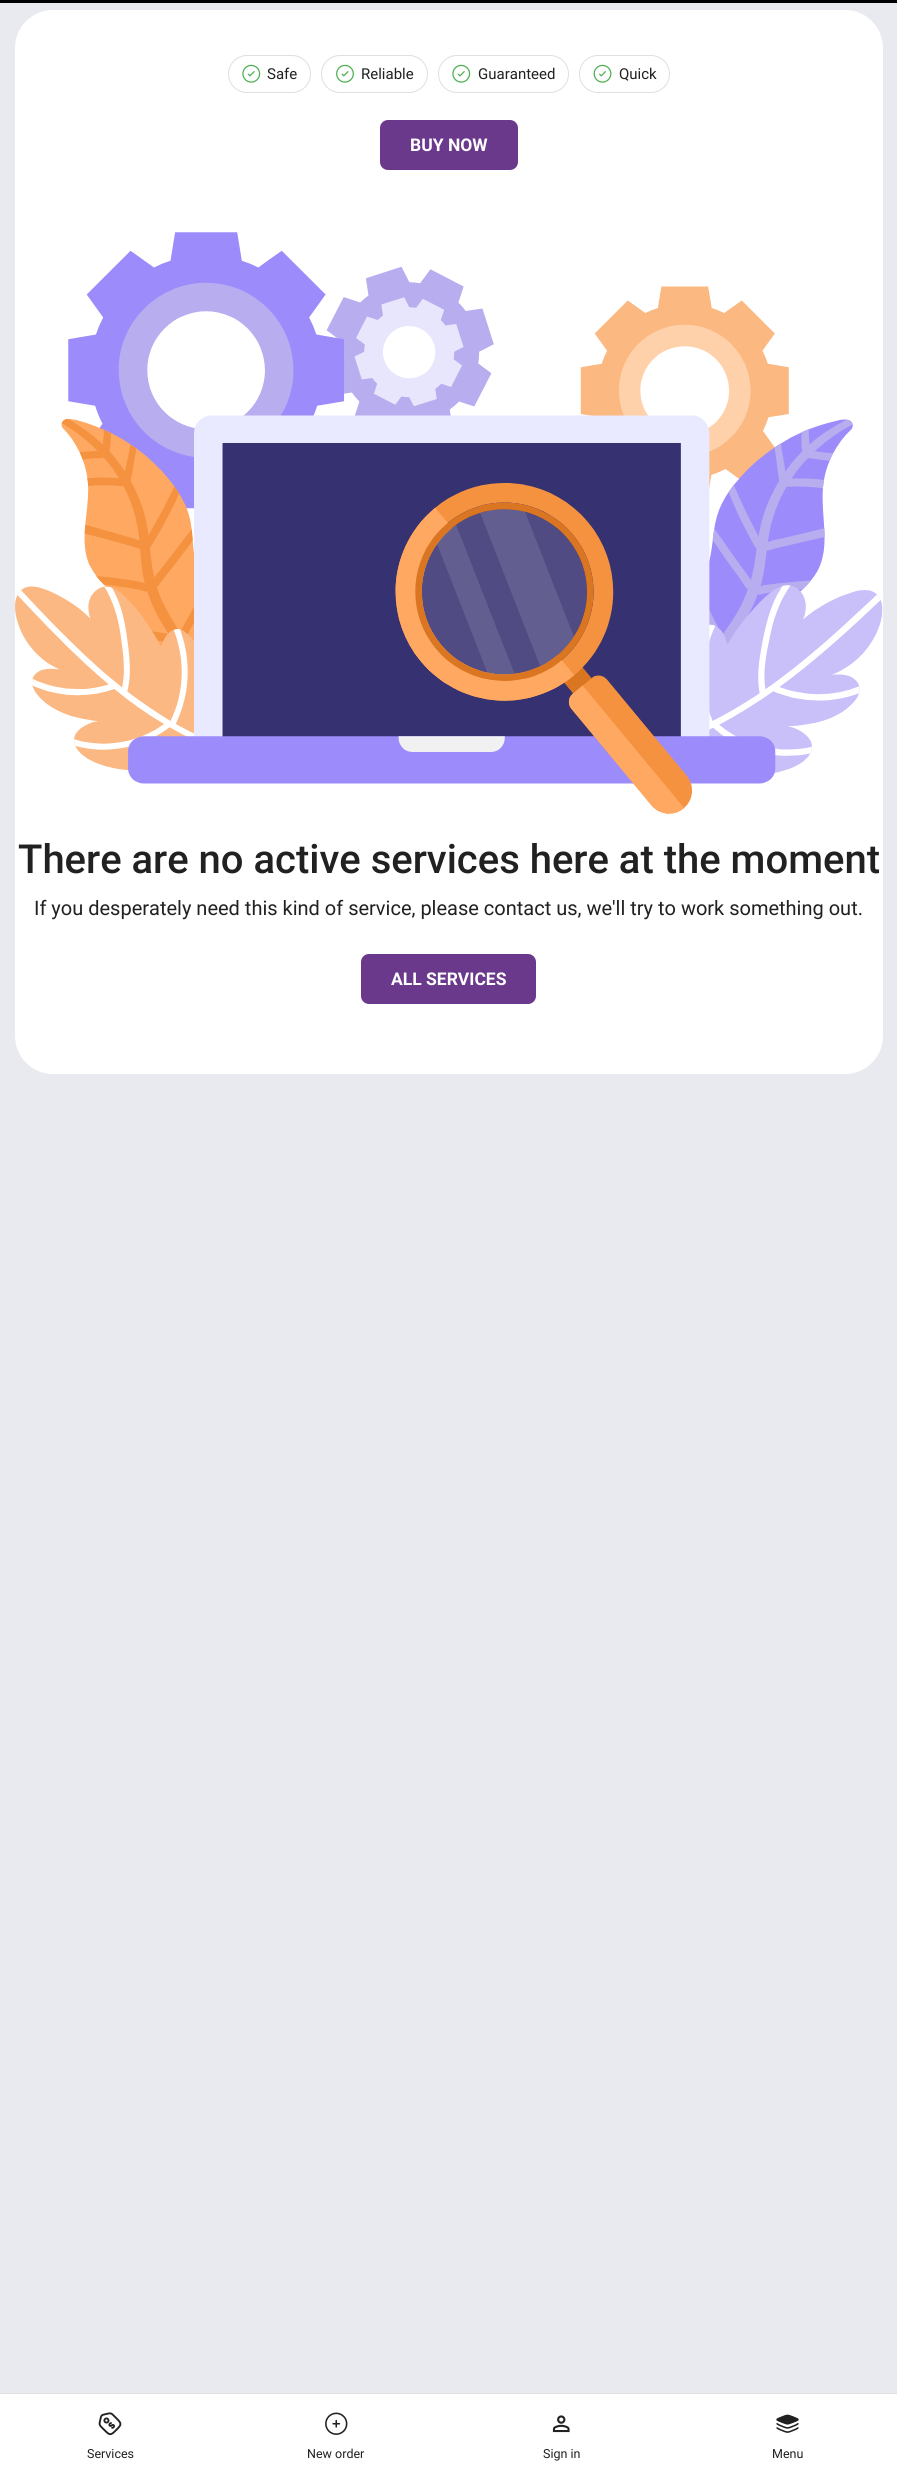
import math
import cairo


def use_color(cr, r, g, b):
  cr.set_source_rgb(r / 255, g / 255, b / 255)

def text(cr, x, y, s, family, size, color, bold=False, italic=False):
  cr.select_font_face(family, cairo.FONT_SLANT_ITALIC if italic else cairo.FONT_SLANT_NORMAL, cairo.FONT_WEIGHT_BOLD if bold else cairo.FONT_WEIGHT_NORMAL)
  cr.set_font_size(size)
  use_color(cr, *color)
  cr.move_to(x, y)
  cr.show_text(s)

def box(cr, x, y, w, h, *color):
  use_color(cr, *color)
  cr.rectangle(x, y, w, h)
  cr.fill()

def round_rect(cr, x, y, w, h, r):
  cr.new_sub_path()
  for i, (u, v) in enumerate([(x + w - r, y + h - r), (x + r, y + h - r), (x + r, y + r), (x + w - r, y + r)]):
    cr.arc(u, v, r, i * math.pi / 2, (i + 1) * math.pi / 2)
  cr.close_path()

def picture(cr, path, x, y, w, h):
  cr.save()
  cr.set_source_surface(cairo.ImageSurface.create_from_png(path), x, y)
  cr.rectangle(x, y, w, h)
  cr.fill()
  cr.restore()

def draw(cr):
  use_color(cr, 233, 234, 239)
  cr.paint()
  box(cr, 0, 0, 897, 3, 0, 0, 0)
  use_color(cr, 255, 255, 255)
  round_rect(cr, 15, 10, 868, 1064, 38)
  cr.fill()
  round_rect(cr, 228.5, 55.5, 82, 37, 18.5)
  use_color(cr, 223, 223, 223)
  cr.set_line_width(1)
  cr.stroke()
  picture(cr, "img_01.png", 242, 64, 19, 19)
  round_rect(cr, 321.5, 55.5, 106, 37, 18.5)
  cr.stroke()
  picture(cr, "img_02.png", 336, 64, 18, 19)
  round_rect(cr, 438.5, 55.5, 130, 37, 18.5)
  cr.stroke()
  picture(cr, "img_01.png", 452, 64, 19, 19)
  round_rect(cr, 579.5, 55.5, 90, 37, 18.5)
  cr.stroke()
  picture(cr, "img_03.png", 593, 64, 19, 19)
  use_color(cr, 106, 57, 139)
  round_rect(cr, 380, 120, 138, 50, 8)
  cr.fill()
  picture(cr, "img_04.png", 15, 232, 868, 582)
  round_rect(cr, 361, 954, 175, 50, 8)
  cr.fill()
  box(cr, 0, 2394, 897, 86, 255, 255, 255)
  box(cr, 0, 2393, 897, 1, 223, 223, 223)
  picture(cr, "img_05.png", 98, 2412, 24, 24)
  picture(cr, "img_06.png", 325, 2412, 23, 23)
  picture(cr, "img_07.png", 552, 2415, 18, 18)
  picture(cr, "img_08.png", 776, 2414, 23, 19)
  text(cr, 267, 79, "Safe", "Roboto", 15, (33, 33, 33))
  text(cr, 361, 79, "Reliable", "Roboto", 15, (33, 33, 33))
  text(cr, 478, 79, "Guaranteed", "Roboto", 15, (33, 33, 33))
  text(cr, 619, 79, "Quick", "Roboto", 15, (33, 33, 33))
  text(cr, 410, 151, "BUY NOW", "Roboto", 17.5, (255, 255, 255), bold=True)
  text(cr, 18, 873, "There are no active services here at the moment", "Roboto Medium", 40, (33, 33, 33))
  text(cr, 34, 915, "If you desperately need this kind of service, please contact us, we'll try to work something out.", "Roboto", 20, (33, 33, 33))
  text(cr, 391, 985, "ALL SERVICES", "Roboto", 17.5, (255, 255, 255), bold=True)
  text(cr, 87, 2458, "Services", "Roboto", 12.5, (33, 33, 33))
  text(cr, 307, 2458, "New order", "Roboto", 12.5, (33, 33, 33))
  text(cr, 543, 2458, "Sign in", "Roboto", 12.5, (33, 33, 33))
  text(cr, 772, 2458, "Menu", "Roboto", 12.5, (33, 33, 33))


surface = cairo.ImageSurface(cairo.FORMAT_RGB24, 897, 2480)
cr = cairo.Context(surface)
options = cairo.FontOptions()
options.set_hint_metrics(cairo.HINT_METRICS_OFF)
options.set_hint_style(cairo.HINT_STYLE_NONE)
cr.set_font_options(options)
cr.set_miter_limit(4)
draw(cr)
surface.write_to_png("out.png")
